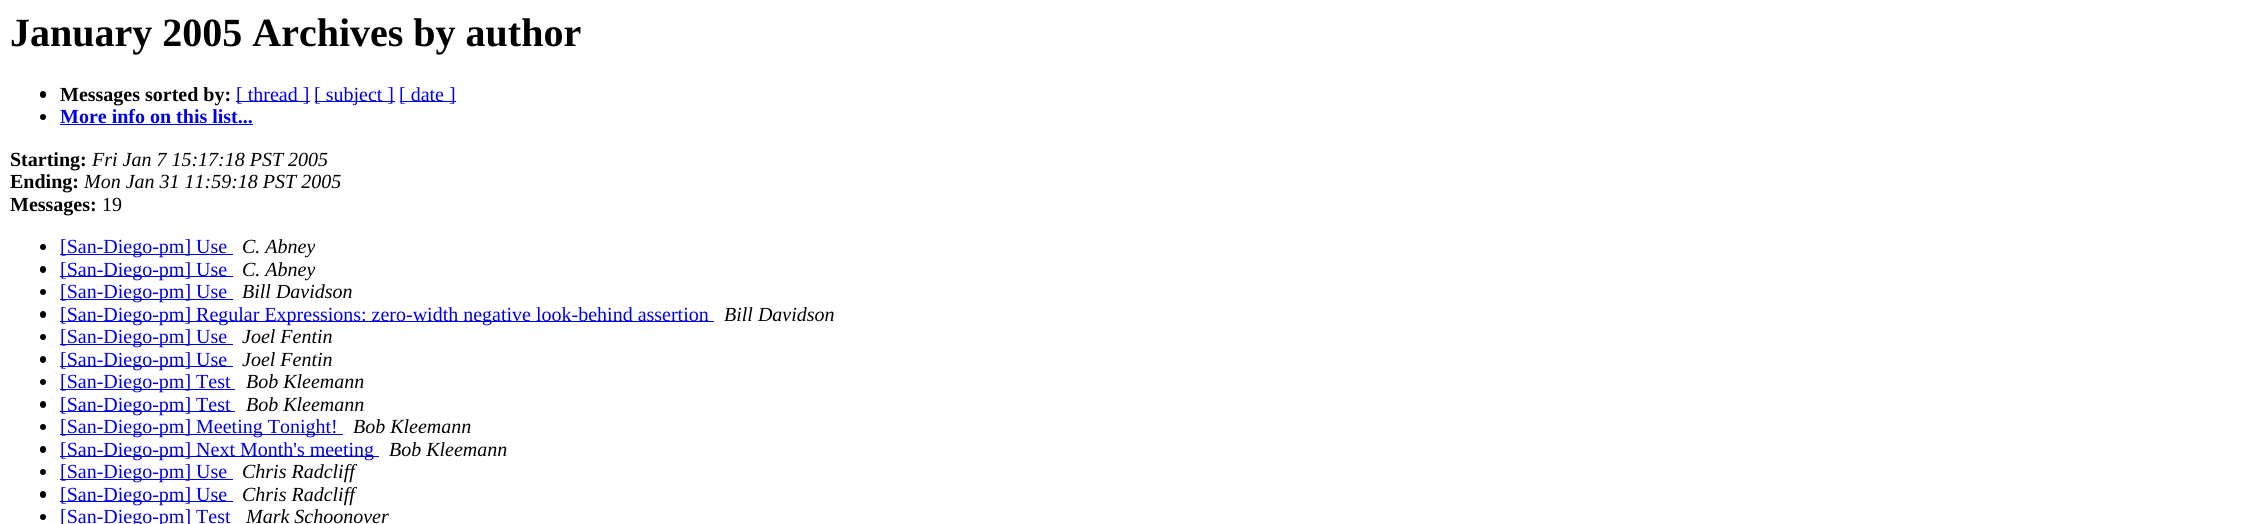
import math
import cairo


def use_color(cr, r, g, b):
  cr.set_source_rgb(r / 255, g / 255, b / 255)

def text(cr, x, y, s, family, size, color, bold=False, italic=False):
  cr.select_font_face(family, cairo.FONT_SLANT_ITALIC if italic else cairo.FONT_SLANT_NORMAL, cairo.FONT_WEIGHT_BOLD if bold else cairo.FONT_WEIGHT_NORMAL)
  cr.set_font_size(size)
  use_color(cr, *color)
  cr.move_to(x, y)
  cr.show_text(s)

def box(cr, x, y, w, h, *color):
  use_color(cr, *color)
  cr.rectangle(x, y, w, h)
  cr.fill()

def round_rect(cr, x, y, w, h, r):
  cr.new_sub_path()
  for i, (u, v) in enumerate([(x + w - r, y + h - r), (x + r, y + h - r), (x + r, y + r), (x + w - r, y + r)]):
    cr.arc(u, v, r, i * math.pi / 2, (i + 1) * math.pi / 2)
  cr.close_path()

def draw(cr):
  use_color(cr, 255, 255, 255)
  cr.paint()
  use_color(cr, 0, 0, 0)
  round_rect(cr, 40, 91, 6, 7, 3)
  cr.fill()
  box(cr, 236, 101, 74, 1, 0, 0, 238)
  box(cr, 315, 101, 80, 1, 0, 0, 238)
  box(cr, 400, 101, 56, 1, 0, 0, 238)
  use_color(cr, 0, 0, 0)
  cr.arc(43, 117, 3, 0, 2 * math.pi)
  cr.fill()
  box(cr, 60, 124, 193, 1, 0, 0, 238)
  use_color(cr, 0, 0, 0)
  cr.arc(43, 247, 3, 0, 2 * math.pi)
  cr.fill()
  box(cr, 60, 254, 173, 1, 0, 0, 238)
  use_color(cr, 0, 0, 0)
  round_rect(cr, 40, 266, 6, 7, 3)
  cr.fill()
  box(cr, 60, 276, 173, 1, 0, 0, 238)
  use_color(cr, 0, 0, 0)
  cr.arc(43, 292, 3, 0, 2 * math.pi)
  cr.fill()
  box(cr, 60, 299, 173, 1, 0, 0, 238)
  use_color(cr, 0, 0, 0)
  round_rect(cr, 40, 311, 6, 7, 3)
  cr.fill()
  box(cr, 60, 321, 654, 1, 0, 0, 238)
  use_color(cr, 0, 0, 0)
  cr.arc(43, 337, 3, 0, 2 * math.pi)
  cr.fill()
  box(cr, 60, 344, 173, 1, 0, 0, 238)
  use_color(cr, 0, 0, 0)
  round_rect(cr, 40, 356, 6, 7, 3)
  cr.fill()
  box(cr, 60, 366, 173, 1, 0, 0, 238)
  use_color(cr, 0, 0, 0)
  cr.arc(43, 382, 3, 0, 2 * math.pi)
  cr.fill()
  box(cr, 60, 389, 175, 1, 0, 0, 238)
  use_color(cr, 0, 0, 0)
  round_rect(cr, 40, 401, 6, 7, 3)
  cr.fill()
  box(cr, 60, 411, 175, 1, 0, 0, 238)
  use_color(cr, 0, 0, 0)
  cr.arc(43, 427, 3, 0, 2 * math.pi)
  cr.fill()
  box(cr, 60, 434, 283, 1, 0, 0, 238)
  use_color(cr, 0, 0, 0)
  round_rect(cr, 40, 446, 6, 7, 3)
  cr.fill()
  box(cr, 60, 456, 319, 1, 0, 0, 238)
  use_color(cr, 0, 0, 0)
  cr.arc(43, 472, 3, 0, 2 * math.pi)
  cr.fill()
  box(cr, 60, 479, 173, 1, 0, 0, 238)
  use_color(cr, 0, 0, 0)
  round_rect(cr, 40, 491, 6, 7, 3)
  cr.fill()
  box(cr, 60, 501, 173, 1, 0, 0, 238)
  use_color(cr, 0, 0, 0)
  cr.arc(43, 517, 3, 0, 2 * math.pi)
  cr.fill()
  text(cr, 10, 46, "January 2005 Archives by author", "Liberation Serif", 40, (0, 0, 0), bold=True)
  text(cr, 60, 101, "Messages sorted by:", "Liberation Serif", 20, (0, 0, 0), bold=True)
  text(cr, 236, 101, "[ thread ]", "Liberation Serif", 20, (0, 0, 238))
  text(cr, 314, 101, "[ subject ]", "Liberation Serif", 20, (0, 0, 238))
  text(cr, 399, 101, "[ date ]", "Liberation Serif", 20, (0, 0, 238))
  text(cr, 60, 123, "More info on this list...", "Liberation Serif", 20, (0, 0, 238), bold=True)
  text(cr, 10, 166, "Starting:", "Liberation Serif", 20, (0, 0, 0), bold=True)
  text(cr, 92, 166, "Fri Jan 7 15:17:18 PST 2005", "Liberation Serif", 20, (0, 0, 0), italic=True)
  text(cr, 10, 188, "Ending:", "Liberation Serif", 20, (0, 0, 0), bold=True)
  text(cr, 84, 188, "Mon Jan 31 11:59:18 PST 2005", "Liberation Serif", 20, (0, 0, 0), italic=True)
  text(cr, 10, 211, "Messages:", "Liberation Serif", 20, (0, 0, 0), bold=True)
  text(cr, 102, 211, "19", "Liberation Serif", 20, (0, 0, 0))
  text(cr, 60, 253, "[San-Diego-pm] Use", "Liberation Serif", 20, (0, 0, 238))
  text(cr, 242, 253, "C. Abney", "Liberation Serif", 20, (0, 0, 0), italic=True)
  text(cr, 60, 276, "[San-Diego-pm] Use", "Liberation Serif", 20, (0, 0, 238))
  text(cr, 242, 276, "C. Abney", "Liberation Serif", 20, (0, 0, 0), italic=True)
  text(cr, 60, 298, "[San-Diego-pm] Use", "Liberation Serif", 20, (0, 0, 238))
  text(cr, 242, 298, "Bill Davidson", "Liberation Serif", 20, (0, 0, 0), italic=True)
  text(cr, 60, 321, "[San-Diego-pm] Regular Expressions: zero-width negative look-behind assertion", "Liberation Serif", 20, (0, 0, 238))
  text(cr, 724, 321, "Bill Davidson", "Liberation Serif", 20, (0, 0, 0), italic=True)
  text(cr, 60, 343, "[San-Diego-pm] Use", "Liberation Serif", 20, (0, 0, 238))
  text(cr, 242, 343, "Joel Fentin", "Liberation Serif", 20, (0, 0, 0), italic=True)
  text(cr, 60, 366, "[San-Diego-pm] Use", "Liberation Serif", 20, (0, 0, 238))
  text(cr, 242, 366, "Joel Fentin", "Liberation Serif", 20, (0, 0, 0), italic=True)
  text(cr, 60, 388, "[San-Diego-pm] Test", "Liberation Serif", 20, (0, 0, 238))
  text(cr, 246, 388, "Bob Kleemann", "Liberation Serif", 20, (0, 0, 0), italic=True)
  text(cr, 60, 411, "[San-Diego-pm] Test", "Liberation Serif", 20, (0, 0, 238))
  text(cr, 246, 411, "Bob Kleemann", "Liberation Serif", 20, (0, 0, 0), italic=True)
  text(cr, 60, 433, "[San-Diego-pm] Meeting Tonight!", "Liberation Serif", 20, (0, 0, 238))
  text(cr, 353, 433, "Bob Kleemann", "Liberation Serif", 20, (0, 0, 0), italic=True)
  text(cr, 60, 456, "[San-Diego-pm] Next Month's meeting", "Liberation Serif", 20, (0, 0, 238))
  text(cr, 389, 456, "Bob Kleemann", "Liberation Serif", 20, (0, 0, 0), italic=True)
  text(cr, 60, 478, "[San-Diego-pm] Use", "Liberation Serif", 20, (0, 0, 238))
  text(cr, 242, 478, "Chris Radcliff", "Liberation Serif", 20, (0, 0, 0), italic=True)
  text(cr, 60, 501, "[San-Diego-pm] Use", "Liberation Serif", 20, (0, 0, 238))
  text(cr, 242, 501, "Chris Radcliff", "Liberation Serif", 20, (0, 0, 0), italic=True)
  text(cr, 60, 523, "[San-Diego-pm] Test", "Liberation Serif", 20, (0, 0, 238))
  text(cr, 246, 523, "Mark Schoonover", "Liberation Serif", 20, (0, 0, 0), italic=True)


surface = cairo.ImageSurface(cairo.FORMAT_RGB24, 2253, 524)
cr = cairo.Context(surface)
options = cairo.FontOptions()
options.set_hint_metrics(cairo.HINT_METRICS_OFF)
options.set_hint_style(cairo.HINT_STYLE_NONE)
cr.set_font_options(options)
cr.set_miter_limit(4)
draw(cr)
surface.write_to_png("out.png")
